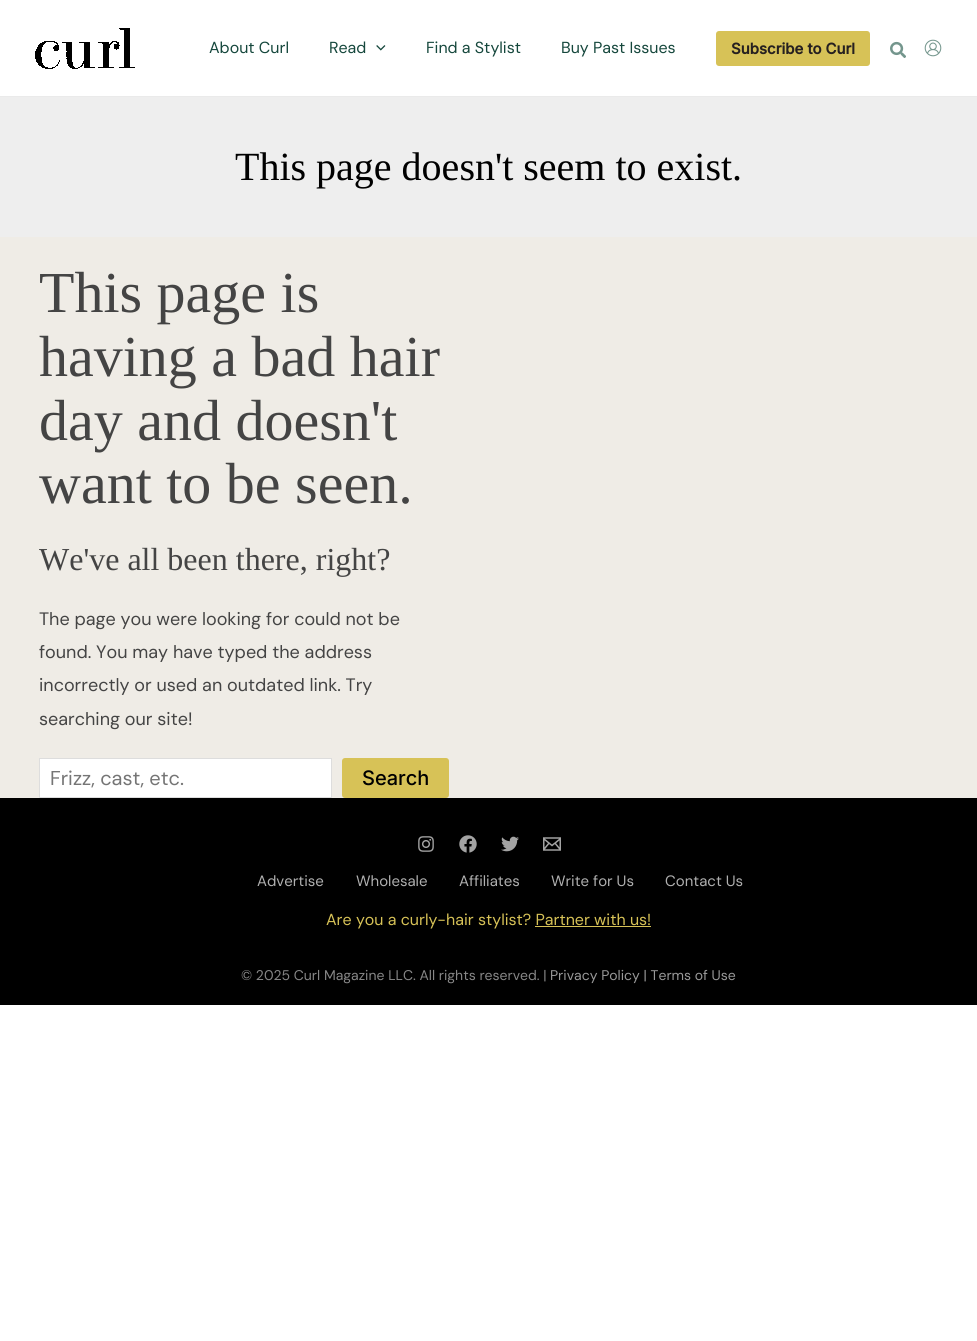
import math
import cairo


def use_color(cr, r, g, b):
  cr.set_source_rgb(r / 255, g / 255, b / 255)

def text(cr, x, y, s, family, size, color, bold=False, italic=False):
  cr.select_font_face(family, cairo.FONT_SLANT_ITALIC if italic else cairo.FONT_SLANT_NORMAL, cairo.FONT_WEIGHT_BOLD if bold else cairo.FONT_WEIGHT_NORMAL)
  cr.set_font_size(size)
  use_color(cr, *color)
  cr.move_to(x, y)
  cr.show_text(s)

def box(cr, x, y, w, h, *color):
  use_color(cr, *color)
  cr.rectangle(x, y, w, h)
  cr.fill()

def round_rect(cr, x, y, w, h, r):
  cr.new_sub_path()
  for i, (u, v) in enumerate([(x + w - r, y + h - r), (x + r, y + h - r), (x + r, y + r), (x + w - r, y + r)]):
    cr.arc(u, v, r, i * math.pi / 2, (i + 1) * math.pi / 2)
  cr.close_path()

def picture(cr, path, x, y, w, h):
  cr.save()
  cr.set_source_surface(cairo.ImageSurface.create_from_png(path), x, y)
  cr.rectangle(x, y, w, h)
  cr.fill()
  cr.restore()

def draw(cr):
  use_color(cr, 255, 255, 255)
  cr.paint()
  box(cr, 0, 96, 977, 1, 234, 234, 234)
  picture(cr, "img_01.png", 35, 28, 100, 41)
  picture(cr, "img_02.png", 376, 45, 10, 6)
  use_color(cr, 215, 194, 87)
  round_rect(cr, 716, 31, 154, 35, 3)
  cr.fill()
  picture(cr, "img_03.png", 890, 41, 16, 17)
  picture(cr, "img_04.png", 924, 39, 18, 18)
  box(cr, 0, 97, 977, 140, 238, 238, 238)
  box(cr, 0, 237, 977, 561, 239, 236, 230)
  use_color(cr, 255, 255, 255)
  cr.rectangle(39.5, 758.5, 292, 39)
  cr.fill_preserve()
  use_color(cr, 221, 221, 221)
  cr.set_line_width(1)
  cr.stroke()
  use_color(cr, 215, 194, 87)
  round_rect(cr, 342, 758, 107, 40, 3)
  cr.fill()
  box(cr, 0, 798, 977, 207, 0, 0, 0)
  picture(cr, "img_05.png", 418, 836, 16, 16)
  picture(cr, "img_06.png", 459, 835, 18, 18)
  picture(cr, "img_07.png", 501, 836, 18, 16)
  picture(cr, "img_08.png", 543, 837, 18, 14)
  box(cr, 535, 926, 116, 1, 215, 194, 87)
  text(cr, 209, 53, "About Curl", "DM Sans", 16, (21, 71, 60))
  text(cr, 329, 53, "Read", "DM Sans", 16, (21, 71, 60))
  text(cr, 426, 53, "Find a Stylist", "DM Sans", 16, (21, 71, 60))
  text(cr, 561, 53, "Buy Past Issues", "DM Sans", 16, (21, 71, 60))
  text(cr, 731, 54, "Subscribe to Curl", "Inter", 15, (38, 32, 32), bold=True)
  text(cr, 235, 180, "This page doesn't seem to exist.", "Liberation Serif", 40, (0, 0, 0))
  text(cr, 39, 312, "This page is", "Liberation Serif", 58, (68, 68, 68))
  text(cr, 39, 376, "having a bad hair", "Liberation Serif", 58, (68, 68, 68))
  text(cr, 39, 440, "day and doesn't", "Liberation Serif", 58, (68, 68, 68))
  text(cr, 39, 503, "want to be seen.", "Liberation Serif", 58, (68, 68, 68))
  text(cr, 39, 570, "We've all been there, right?", "Liberation Serif", 32, (68, 68, 68))
  text(cr, 39, 625, "The page you were looking for could not be", "DM Sans", 18, (68, 68, 68))
  text(cr, 39, 658, "found. You may have typed the address", "DM Sans", 18, (68, 68, 68))
  text(cr, 39, 691, "incorrectly or used an outdated link. Try", "DM Sans", 18, (68, 68, 68))
  text(cr, 39, 725, "searching our site!", "DM Sans", 18, (68, 68, 68))
  text(cr, 50, 785, "Frizz, cast, etc.", "DM Sans", 20, (117, 117, 117))
  text(cr, 362, 785, "Search", "Inter Medium", 20, (0, 0, 0))
  text(cr, 257, 886, "Advertise", "DM Sans", 15, (176, 176, 176))
  text(cr, 356, 886, "Wholesale", "DM Sans", 15, (176, 176, 176))
  text(cr, 459, 886, "Affiliates", "DM Sans", 15, (176, 176, 176))
  text(cr, 551, 886, "Write for Us", "DM Sans", 15, (176, 176, 176))
  text(cr, 665, 886, "Contact Us", "DM Sans", 15, (176, 176, 176))
  text(cr, 326, 925, "Are you a curly-hair stylist? Partner with us!", "DM Sans", 16, (215, 194, 87))
  text(cr, 241, 980, "© 2025 Curl Magazine LLC. All rights reserved. |", "DM Sans", 14, (135, 135, 135))
  text(cr, 550, 980, "Privacy Policy | Terms of Use", "DM Sans", 14, (153, 153, 153))


surface = cairo.ImageSurface(cairo.FORMAT_RGB24, 977, 1341)
cr = cairo.Context(surface)
options = cairo.FontOptions()
options.set_hint_metrics(cairo.HINT_METRICS_OFF)
options.set_hint_style(cairo.HINT_STYLE_NONE)
cr.set_font_options(options)
cr.set_miter_limit(4)
draw(cr)
surface.write_to_png("out.png")
